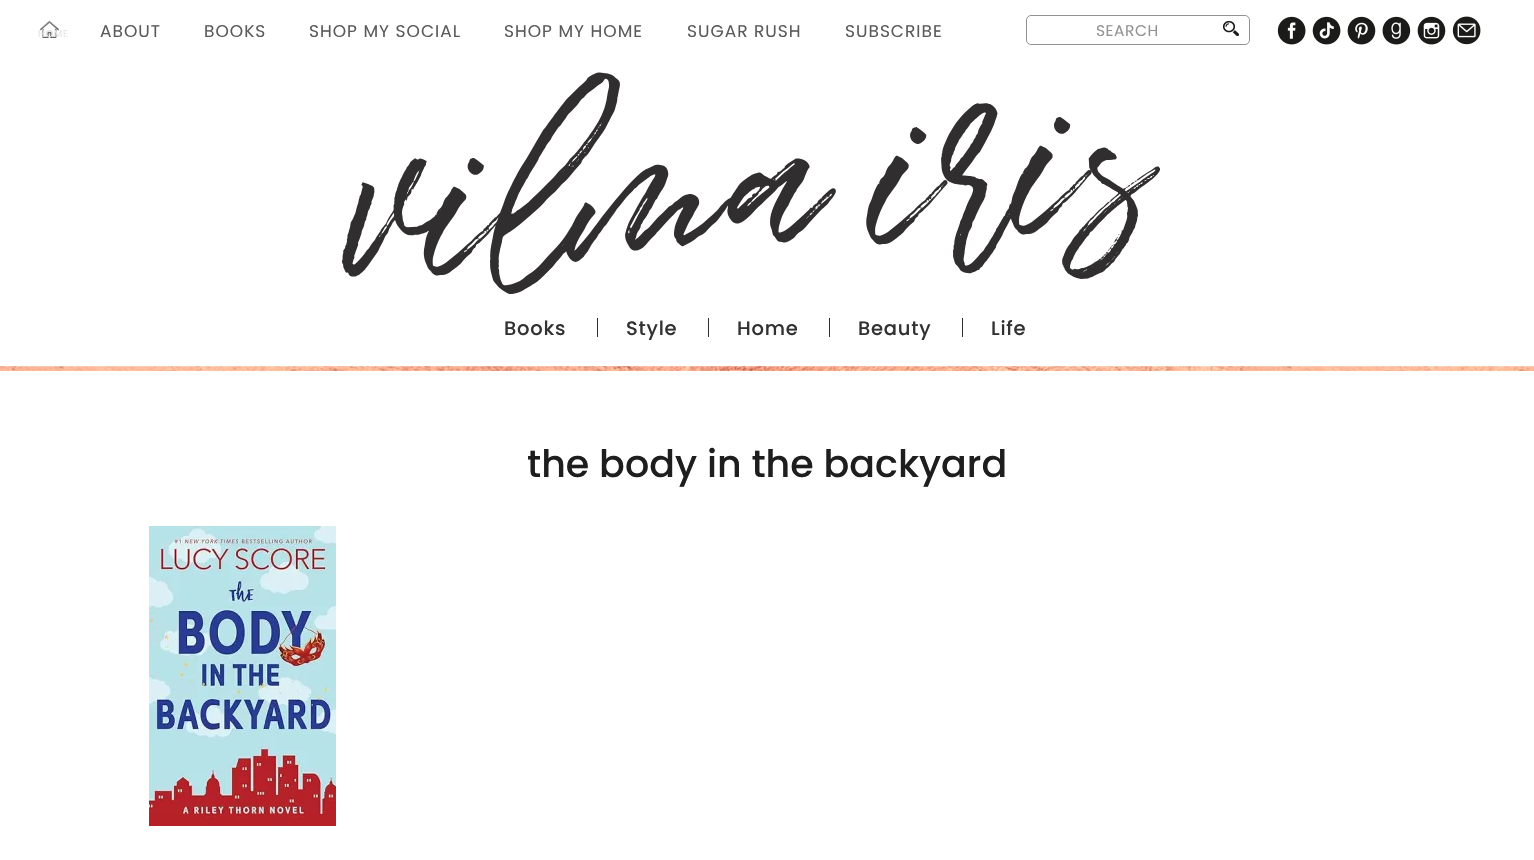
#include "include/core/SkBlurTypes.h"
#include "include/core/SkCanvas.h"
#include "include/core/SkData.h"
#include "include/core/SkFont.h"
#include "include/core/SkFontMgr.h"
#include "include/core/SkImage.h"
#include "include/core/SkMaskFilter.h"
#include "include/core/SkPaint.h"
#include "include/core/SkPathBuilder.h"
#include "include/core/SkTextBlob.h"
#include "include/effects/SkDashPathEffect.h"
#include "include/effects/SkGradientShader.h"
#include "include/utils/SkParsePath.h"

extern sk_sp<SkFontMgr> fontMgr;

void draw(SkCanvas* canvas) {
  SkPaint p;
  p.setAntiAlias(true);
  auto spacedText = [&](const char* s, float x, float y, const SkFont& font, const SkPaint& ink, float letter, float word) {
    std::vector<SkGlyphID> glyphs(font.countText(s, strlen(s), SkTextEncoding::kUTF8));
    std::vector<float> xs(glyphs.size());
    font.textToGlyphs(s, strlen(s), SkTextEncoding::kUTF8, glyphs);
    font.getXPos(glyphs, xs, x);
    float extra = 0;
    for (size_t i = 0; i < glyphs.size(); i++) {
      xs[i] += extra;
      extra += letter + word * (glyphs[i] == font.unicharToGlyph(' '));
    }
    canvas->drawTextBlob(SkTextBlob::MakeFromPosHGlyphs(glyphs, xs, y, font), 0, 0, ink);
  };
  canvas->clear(SK_ColorWHITE);
  canvas->drawImageRect(SkImages::DeferredFromEncodedData(SkData::MakeFromFileName("images/1.png")), SkRect::MakeLTRB(40, 20, 59, 38), SkSamplingOptions());
  canvas->drawImageRect(SkImages::DeferredFromEncodedData(SkData::MakeFromFileName("images/2.png")), SkRect::MakeLTRB(1223, 21, 1239, 36), SkSamplingOptions());
  p.setStyle(SkPaint::kStroke_Style);
  p.setStrokeWidth(1);
  p.setColor(SkColorSetRGB(146, 146, 146));
  canvas->drawRoundRect(SkRect::MakeLTRB(1026.5f, 15.5f, 1249.5f, 44.5f), 4.5f, 4.5f, p);
  canvas->drawImageRect(SkImages::DeferredFromEncodedData(SkData::MakeFromFileName("images/3.png")), SkRect::MakeLTRB(1277, 16, 1306, 45), SkSamplingOptions());
  canvas->drawImageRect(SkImages::DeferredFromEncodedData(SkData::MakeFromFileName("images/4.png")), SkRect::MakeLTRB(1312, 16, 1341, 45), SkSamplingOptions());
  canvas->drawImageRect(SkImages::DeferredFromEncodedData(SkData::MakeFromFileName("images/5.png")), SkRect::MakeLTRB(1347, 16, 1376, 45), SkSamplingOptions());
  canvas->drawImageRect(SkImages::DeferredFromEncodedData(SkData::MakeFromFileName("images/6.png")), SkRect::MakeLTRB(1382, 16, 1411, 45), SkSamplingOptions());
  canvas->drawImageRect(SkImages::DeferredFromEncodedData(SkData::MakeFromFileName("images/7.png")), SkRect::MakeLTRB(1417, 16, 1446, 45), SkSamplingOptions());
  canvas->drawImageRect(SkImages::DeferredFromEncodedData(SkData::MakeFromFileName("images/8.png")), SkRect::MakeLTRB(1452, 16, 1481, 45), SkSamplingOptions());
  canvas->drawImageRect(SkImages::DeferredFromEncodedData(SkData::MakeFromFileName("images/9.png")), SkRect::MakeLTRB(342, 72, 1160, 294), SkSamplingOptions());
  p.setStyle(SkPaint::kFill_Style);
  p.setColor(SkColorSetRGB(48, 48, 48));
  canvas->drawRect(SkRect::MakeLTRB(597, 318, 598, 337), p);
  canvas->drawRect(SkRect::MakeLTRB(708, 318, 709, 337), p);
  canvas->drawRect(SkRect::MakeLTRB(829, 318, 830, 337), p);
  canvas->drawRect(SkRect::MakeLTRB(962, 318, 963, 337), p);
  canvas->drawImageRect(SkImages::DeferredFromEncodedData(SkData::MakeFromFileName("images/10.png")), SkRect::MakeLTRB(0, 366, 1534, 371), SkSamplingOptions());
  canvas->drawImageRect(SkImages::DeferredFromEncodedData(SkData::MakeFromFileName("images/11.png")), SkRect::MakeLTRB(149, 526, 336, 826), SkSamplingOptions());
  SkFont font1(fontMgr->matchFamilyStyle("Poppins", SkFontStyle::Normal()), 17);
  font1.setSubpixel(true);
  p.setColor(SkColorSetRGB(90, 90, 90));
  spacedText("ABOUT", 100, 37, font1, p, 1, 0);
  spacedText("BOOKS", 204, 37, font1, p, 1, 0);
  spacedText("SHOP MY SOCIAL", 309, 37, font1, p, 1, 0);
  spacedText("SHOP MY HOME", 504, 37, font1, p, 1, 0);
  spacedText("SUGAR RUSH", 687, 37, font1, p, 1, 0);
  spacedText("SUBSCRIBE", 845, 37, font1, p, 1, 0);
  SkFont font2(fontMgr->matchFamilyStyle("Poppins", SkFontStyle::Normal()), 10);
  font2.setSubpixel(true);
  p.setColor(SkColorSetRGB(230, 230, 230));
  spacedText("HOME", 38, 37, font2, p, 0.5f, 0);
  SkFont font3(fontMgr->matchFamilyStyle("Poppins", SkFontStyle::Normal()), 15.5f);
  font3.setSubpixel(true);
  p.setColor(SkColorSetRGB(147, 147, 147));
  spacedText("SEARCH", 1096, 36, font3, p, 0.5f, 0);
  SkFont font4(fontMgr->matchFamilyStyle("Poppins", SkFontStyle(500, SkFontStyle::kNormal_Width, SkFontStyle::kUpright_Slant)), 19.5f);
  font4.setSubpixel(true);
  p.setColor(SkColorSetRGB(50, 50, 50));
  spacedText("Books", 504, 335, font4, p, 0.75f, 0);
  spacedText("Style", 626, 335, font4, p, 0.75f, 0);
  spacedText("Home", 737, 335, font4, p, 0.75f, 0);
  spacedText("Beauty", 858, 335, font4, p, 0.75f, 0);
  spacedText("Life", 991, 335, font4, p, 0.75f, 0);
  SkFont font5(fontMgr->matchFamilyStyle("Poppins", SkFontStyle(500, SkFontStyle::kNormal_Width, SkFontStyle::kUpright_Slant)), 38);
  font5.setSubpixel(true);
  p.setColor(SkColorSetRGB(30, 30, 30));
  canvas->drawString("the body in the backyard", 527, 477, font5, p);
}
